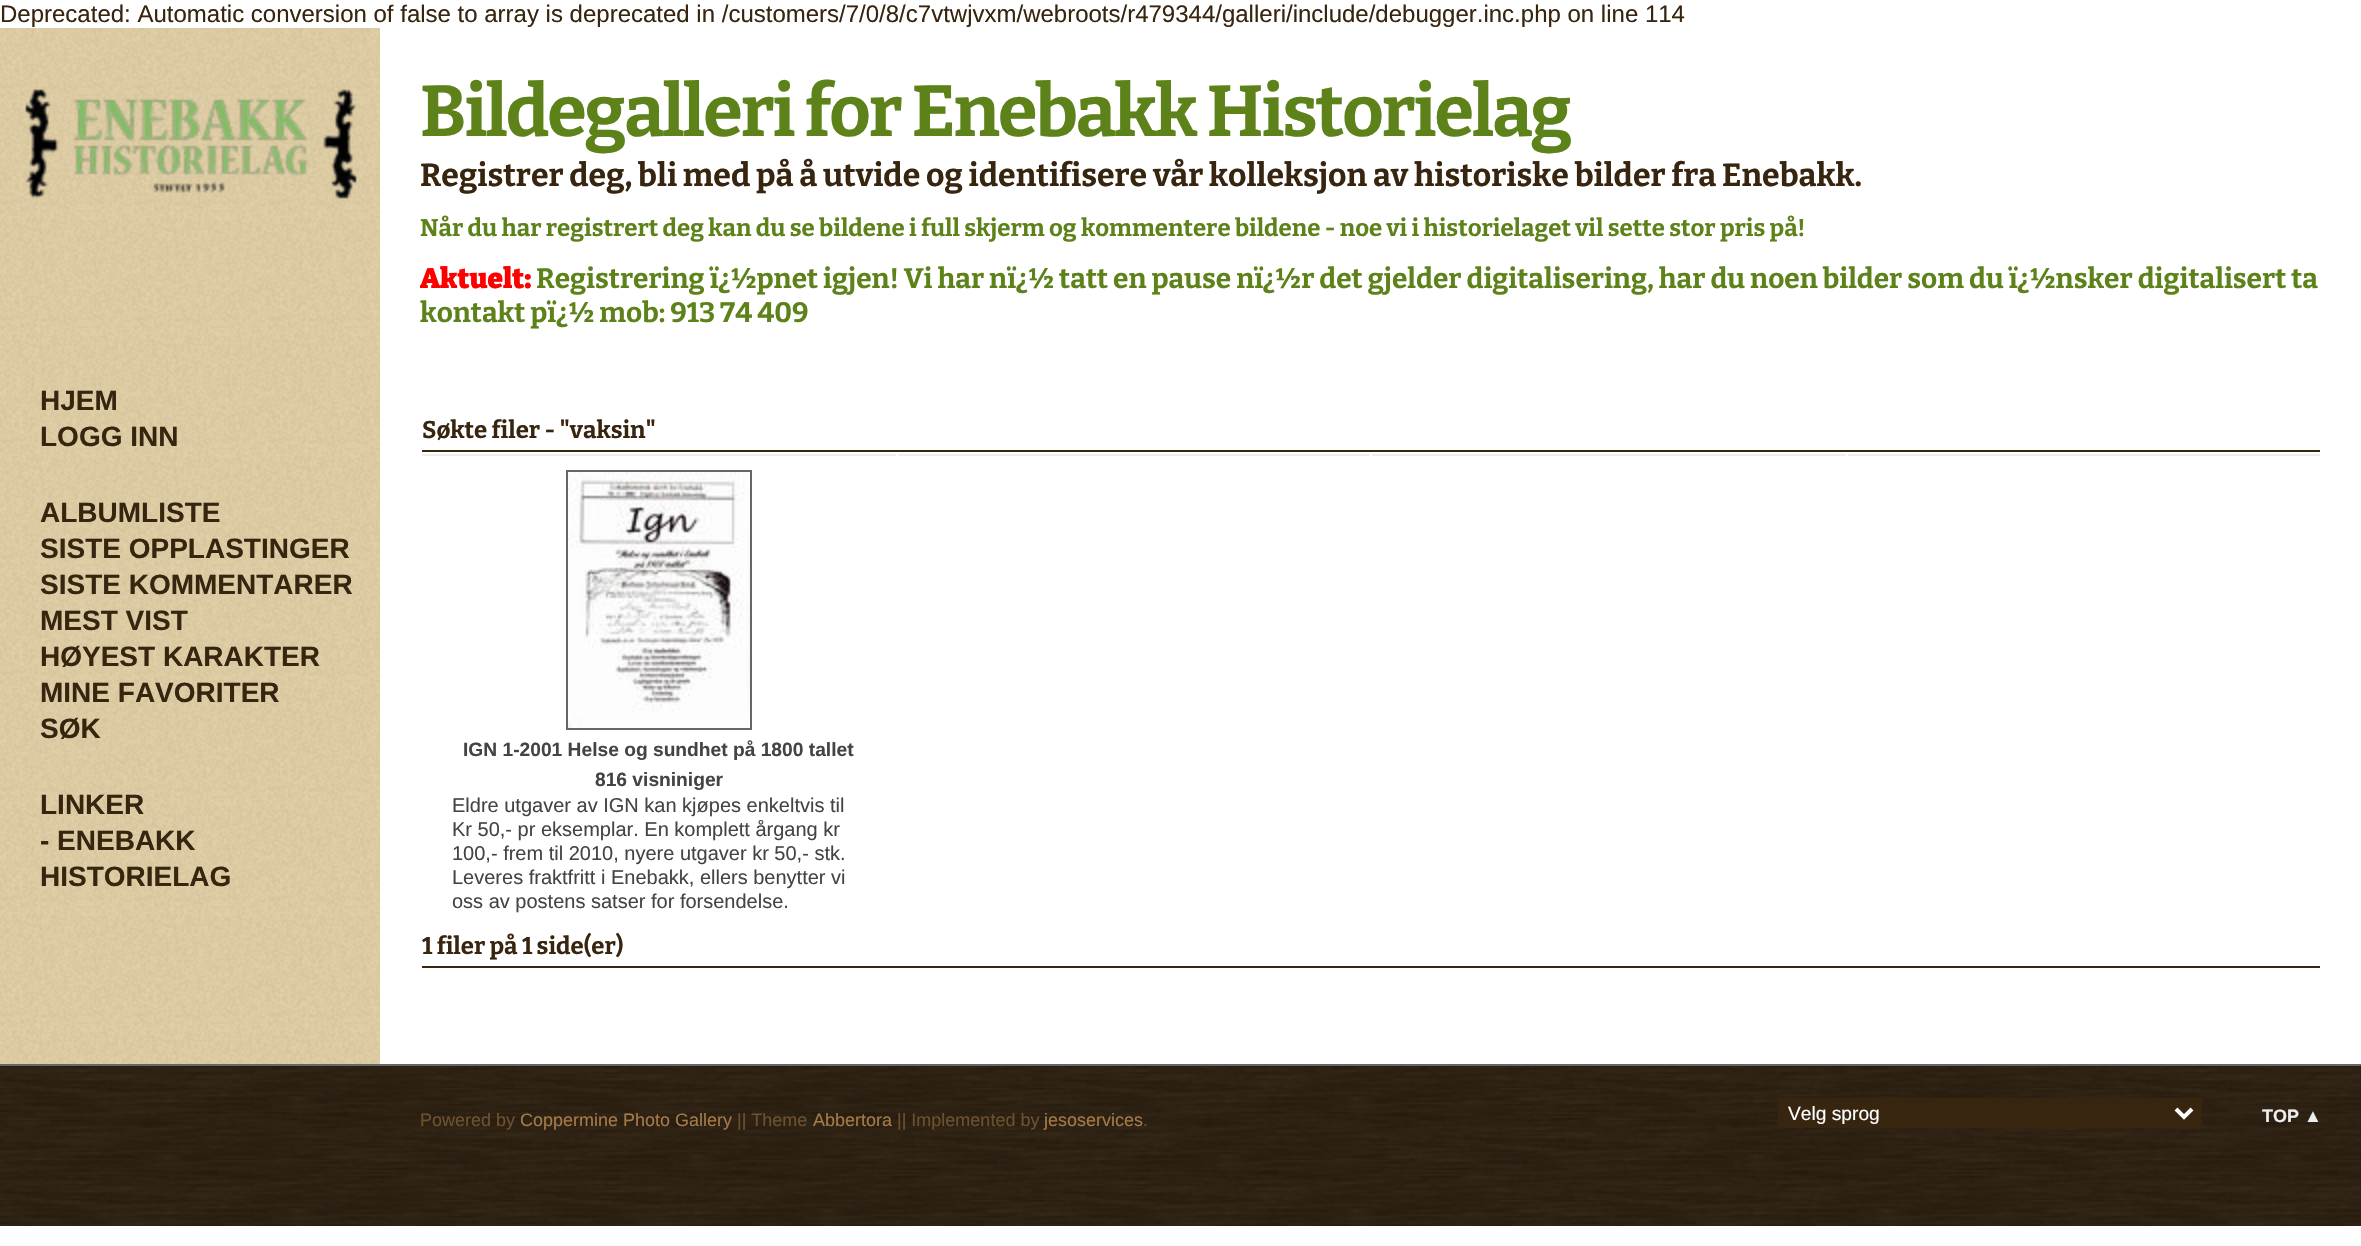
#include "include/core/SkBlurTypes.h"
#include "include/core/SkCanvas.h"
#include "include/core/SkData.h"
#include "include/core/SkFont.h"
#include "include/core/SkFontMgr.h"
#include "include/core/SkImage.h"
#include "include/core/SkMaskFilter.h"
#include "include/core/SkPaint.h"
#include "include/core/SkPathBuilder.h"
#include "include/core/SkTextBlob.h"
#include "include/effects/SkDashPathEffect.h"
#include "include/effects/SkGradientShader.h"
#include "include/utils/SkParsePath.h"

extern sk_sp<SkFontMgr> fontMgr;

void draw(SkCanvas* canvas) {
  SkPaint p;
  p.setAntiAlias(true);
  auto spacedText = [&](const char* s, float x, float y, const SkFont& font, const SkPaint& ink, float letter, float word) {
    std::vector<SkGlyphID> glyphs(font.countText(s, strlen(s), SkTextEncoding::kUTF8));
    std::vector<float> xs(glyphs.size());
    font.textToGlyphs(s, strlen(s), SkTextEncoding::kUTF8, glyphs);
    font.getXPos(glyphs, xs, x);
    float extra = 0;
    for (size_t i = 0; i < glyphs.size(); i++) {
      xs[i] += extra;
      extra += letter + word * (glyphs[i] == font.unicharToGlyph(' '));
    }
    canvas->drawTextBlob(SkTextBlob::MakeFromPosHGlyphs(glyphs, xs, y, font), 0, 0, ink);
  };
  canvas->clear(SK_ColorWHITE);
  canvas->drawImageRect(SkImages::DeferredFromEncodedData(SkData::MakeFromFileName("images/1.png")), SkRect::MakeLTRB(0, 28, 380, 1064), SkSamplingOptions());
  canvas->drawImageRect(SkImages::DeferredFromEncodedData(SkData::MakeFromFileName("images/2.png")), SkRect::MakeLTRB(25, 89, 357, 199), SkSamplingOptions());
  canvas->drawImageRect(SkImages::DeferredFromEncodedData(SkData::MakeFromFileName("images/3.png")), SkRect::MakeLTRB(0, 382, 360, 894), SkSamplingOptions());
  p.setColor(SkColorSetRGB(55, 37, 15));
  canvas->drawRect(SkRect::MakeLTRB(422, 450, 2320, 452), p);
  p.setColor(SkColorSetRGB(238, 238, 238));
  canvas->drawRect(SkRect::MakeLTRB(898, 454, 1370, 456), p);
  canvas->drawRect(SkRect::MakeLTRB(1372, 454, 1846, 456), p);
  canvas->drawRect(SkRect::MakeLTRB(1848, 454, 2320, 456), p);
  canvas->drawRect(SkRect::MakeLTRB(422, 454, 896, 456), p);
  p.setStyle(SkPaint::kStroke_Style);
  p.setStrokeWidth(2);
  p.setColor(SkColorSetRGB(102, 102, 102));
  canvas->drawRect(SkRect::MakeLTRB(567, 471, 751, 729), p);
  canvas->drawImageRect(SkImages::DeferredFromEncodedData(SkData::MakeFromFileName("images/4.png")), SkRect::MakeLTRB(568, 472, 750, 728), SkSamplingOptions());
  p.setStyle(SkPaint::kFill_Style);
  p.setColor(SkColorSetRGB(55, 37, 15));
  canvas->drawRect(SkRect::MakeLTRB(422, 966, 2320, 968), p);
  canvas->drawImageRect(SkImages::DeferredFromEncodedData(SkData::MakeFromFileName("images/5.png")), SkRect::MakeLTRB(0, 1066, 2361, 1226), SkSamplingOptions());
  p.setColor(SkColorSetRGB(102, 102, 102));
  canvas->drawRect(SkRect::MakeLTRB(0, 1064, 2361, 1066), p);
  p.setColor(SkColorSetRGB(55, 37, 15));
  canvas->drawRect(SkRect::MakeLTRB(1778, 1098, 2202, 1128), p);
  p.setStyle(SkPaint::kStroke_Style);
  p.setStrokeWidth(4);
  p.setColor(SK_ColorWHITE);
  canvas->drawPath(SkPathBuilder().moveTo(2176, 1109).lineTo(2184, 1117).lineTo(2192, 1109).detach(), p);
  SkFont font1(fontMgr->matchFamilyStyle("Liberation Sans", SkFontStyle::Normal()), 24);
  font1.setSubpixel(true);
  p.setStyle(SkPaint::kFill_Style);
  p.setColor(SkColorSetRGB(55, 37, 15));
  canvas->drawString("Deprecated: Automatic conversion of false to array is deprecated in /customers/7/0/8/c7vtwjvxm/webroots/r479344/galleri/include/debugger.inc.php on line 114", 0, 22, font1, p);
  SkFont font2(fontMgr->matchFamilyStyle("Liberation Sans", SkFontStyle::Bold()), 28);
  font2.setSubpixel(true);
  canvas->drawString("HJEM", 40, 410, font2, p);
  canvas->drawString("LOGG INN", 40, 446, font2, p);
  canvas->drawString("ALBUMLISTE", 40, 522, font2, p);
  canvas->drawString("SISTE OPPLASTINGER", 40, 558, font2, p);
  canvas->drawString("SISTE KOMMENTARER", 40, 594, font2, p);
  canvas->drawString("MEST VIST", 40, 630, font2, p);
  canvas->drawString("HØYEST KARAKTER", 40, 666, font2, p);
  canvas->drawString("MINE FAVORITER", 40, 702, font2, p);
  canvas->drawString("SØK", 40, 738, font2, p);
  canvas->drawString("LINKER", 40, 814, font2, p);
  canvas->drawString("- ENEBAKK", 40, 850, font2, p);
  canvas->drawString("HISTORIELAG", 40, 886, font2, p);
  SkFont font3(fontMgr->matchFamilyStyle("Bitter", SkFontStyle::Bold()), 72);
  font3.setSubpixel(true);
  p.setColor(SkColorSetRGB(94, 130, 26));
  spacedText("Bildegalleri for Enebakk Historielag", 420, 136, font3, p, -2, 0);
  SkFont font4(fontMgr->matchFamilyStyle("Bitter", SkFontStyle::Bold()), 32);
  font4.setSubpixel(true);
  p.setColor(SkColorSetRGB(55, 37, 15));
  canvas->drawString("Registrer deg, bli med på å utvide og identifisere vår kolleksjon av historiske bilder fra Enebakk.", 420, 186, font4, p);
  SkFont font5(fontMgr->matchFamilyStyle("Bitter", SkFontStyle::Bold()), 24);
  font5.setSubpixel(true);
  p.setColor(SkColorSetRGB(94, 130, 26));
  canvas->drawString("Når du har registrert deg kan du se bildene i full skjerm og kommentere bildene - noe vi i historielaget vil sette stor pris på!", 420, 236, font5, p);
  SkFont font6(fontMgr->matchFamilyStyle("Bitter", SkFontStyle(900, SkFontStyle::kNormal_Width, SkFontStyle::kUpright_Slant)), 28);
  font6.setSubpixel(true);
  p.setColor(SkColorSetRGB(255, 0, 0));
  canvas->drawString("Aktuelt:", 420, 288, font6, p);
  SkFont font7(fontMgr->matchFamilyStyle("Bitter", SkFontStyle::Bold()), 28);
  font7.setSubpixel(true);
  p.setColor(SkColorSetRGB(94, 130, 26));
  canvas->drawString("Registrering ï¿½pnet igjen! Vi har nï¿½ tatt en pause nï¿½r det gjelder digitalisering, har du noen bilder som du ï¿½nsker digitalisert ta", 536, 288, font7, p);
  canvas->drawString("kontakt pï¿½ mob: 913 74 409", 420, 322, font7, p);
  p.setColor(SkColorSetRGB(55, 37, 15));
  canvas->drawString("Søkte filer - \"vaksin\"", 422, 438, font5, p);
  SkFont font8(fontMgr->matchFamilyStyle("Liberation Sans", SkFontStyle::Bold()), 19.2f);
  font8.setSubpixel(true);
  p.setColor(SkColorSetRGB(68, 68, 68));
  canvas->drawString("IGN 1-2001 Helse og sundhet på 1800 tallet", 463, 756, font8, p);
  canvas->drawString("816 visniniger", 595, 786, font8, p);
  SkFont font9(fontMgr->matchFamilyStyle("Liberation Sans", SkFontStyle::Normal()), 20);
  font9.setSubpixel(true);
  canvas->drawString("Eldre utgaver av IGN kan kjøpes enkeltvis til", 452, 812, font9, p);
  canvas->drawString("Kr 50,- pr eksemplar. En komplett årgang kr", 452, 836, font9, p);
  canvas->drawString("100,- frem til 2010, nyere utgaver kr 50,- stk.", 452, 860, font9, p);
  canvas->drawString("Leveres fraktfritt i Enebakk, ellers benytter vi", 452, 884, font9, p);
  canvas->drawString("oss av postens satser for forsendelse.", 452, 908, font9, p);
  p.setColor(SkColorSetRGB(55, 37, 15));
  canvas->drawString("1 filer på 1 side(er)", 422, 954, font5, p);
  SkFont font10(fontMgr->matchFamilyStyle("Liberation Sans", SkFontStyle::Normal()), 18);
  font10.setSubpixel(true);
  p.setColor(SkColorSetRGB(110, 82, 47));
  canvas->drawString("Powered by", 420, 1126, font10, p);
  p.setColor(SkColorSetRGB(165, 123, 71));
  canvas->drawString("Coppermine Photo Gallery", 520, 1126, font10, p);
  p.setColor(SkColorSetRGB(110, 82, 47));
  canvas->drawString("|| Theme", 737, 1126, font10, p);
  p.setColor(SkColorSetRGB(165, 123, 71));
  canvas->drawString("Abbertora", 813, 1126, font10, p);
  p.setColor(SkColorSetRGB(110, 82, 47));
  canvas->drawString("|| Implemented by", 897, 1126, font10, p);
  p.setColor(SkColorSetRGB(165, 123, 71));
  canvas->drawString("jesoservices", 1044, 1126, font10, p);
  p.setColor(SkColorSetRGB(110, 82, 47));
  canvas->drawString(".", 1143, 1126, font10, p);
  SkFont font11(fontMgr->matchFamilyStyle("Liberation Sans", SkFontStyle::Normal()), 19.2f);
  font11.setSubpixel(true);
  p.setColor(SK_ColorWHITE);
  canvas->drawString("Velg sprog", 1788, 1120, font11, p);
  SkFont font12(fontMgr->matchFamilyStyle("Liberation Sans", SkFontStyle::Bold()), 18);
  font12.setSubpixel(true);
  p.setColor(SkColorSetRGB(238, 238, 238));
  canvas->drawString("TOP ▲", 2262, 1122, font12, p);
}
